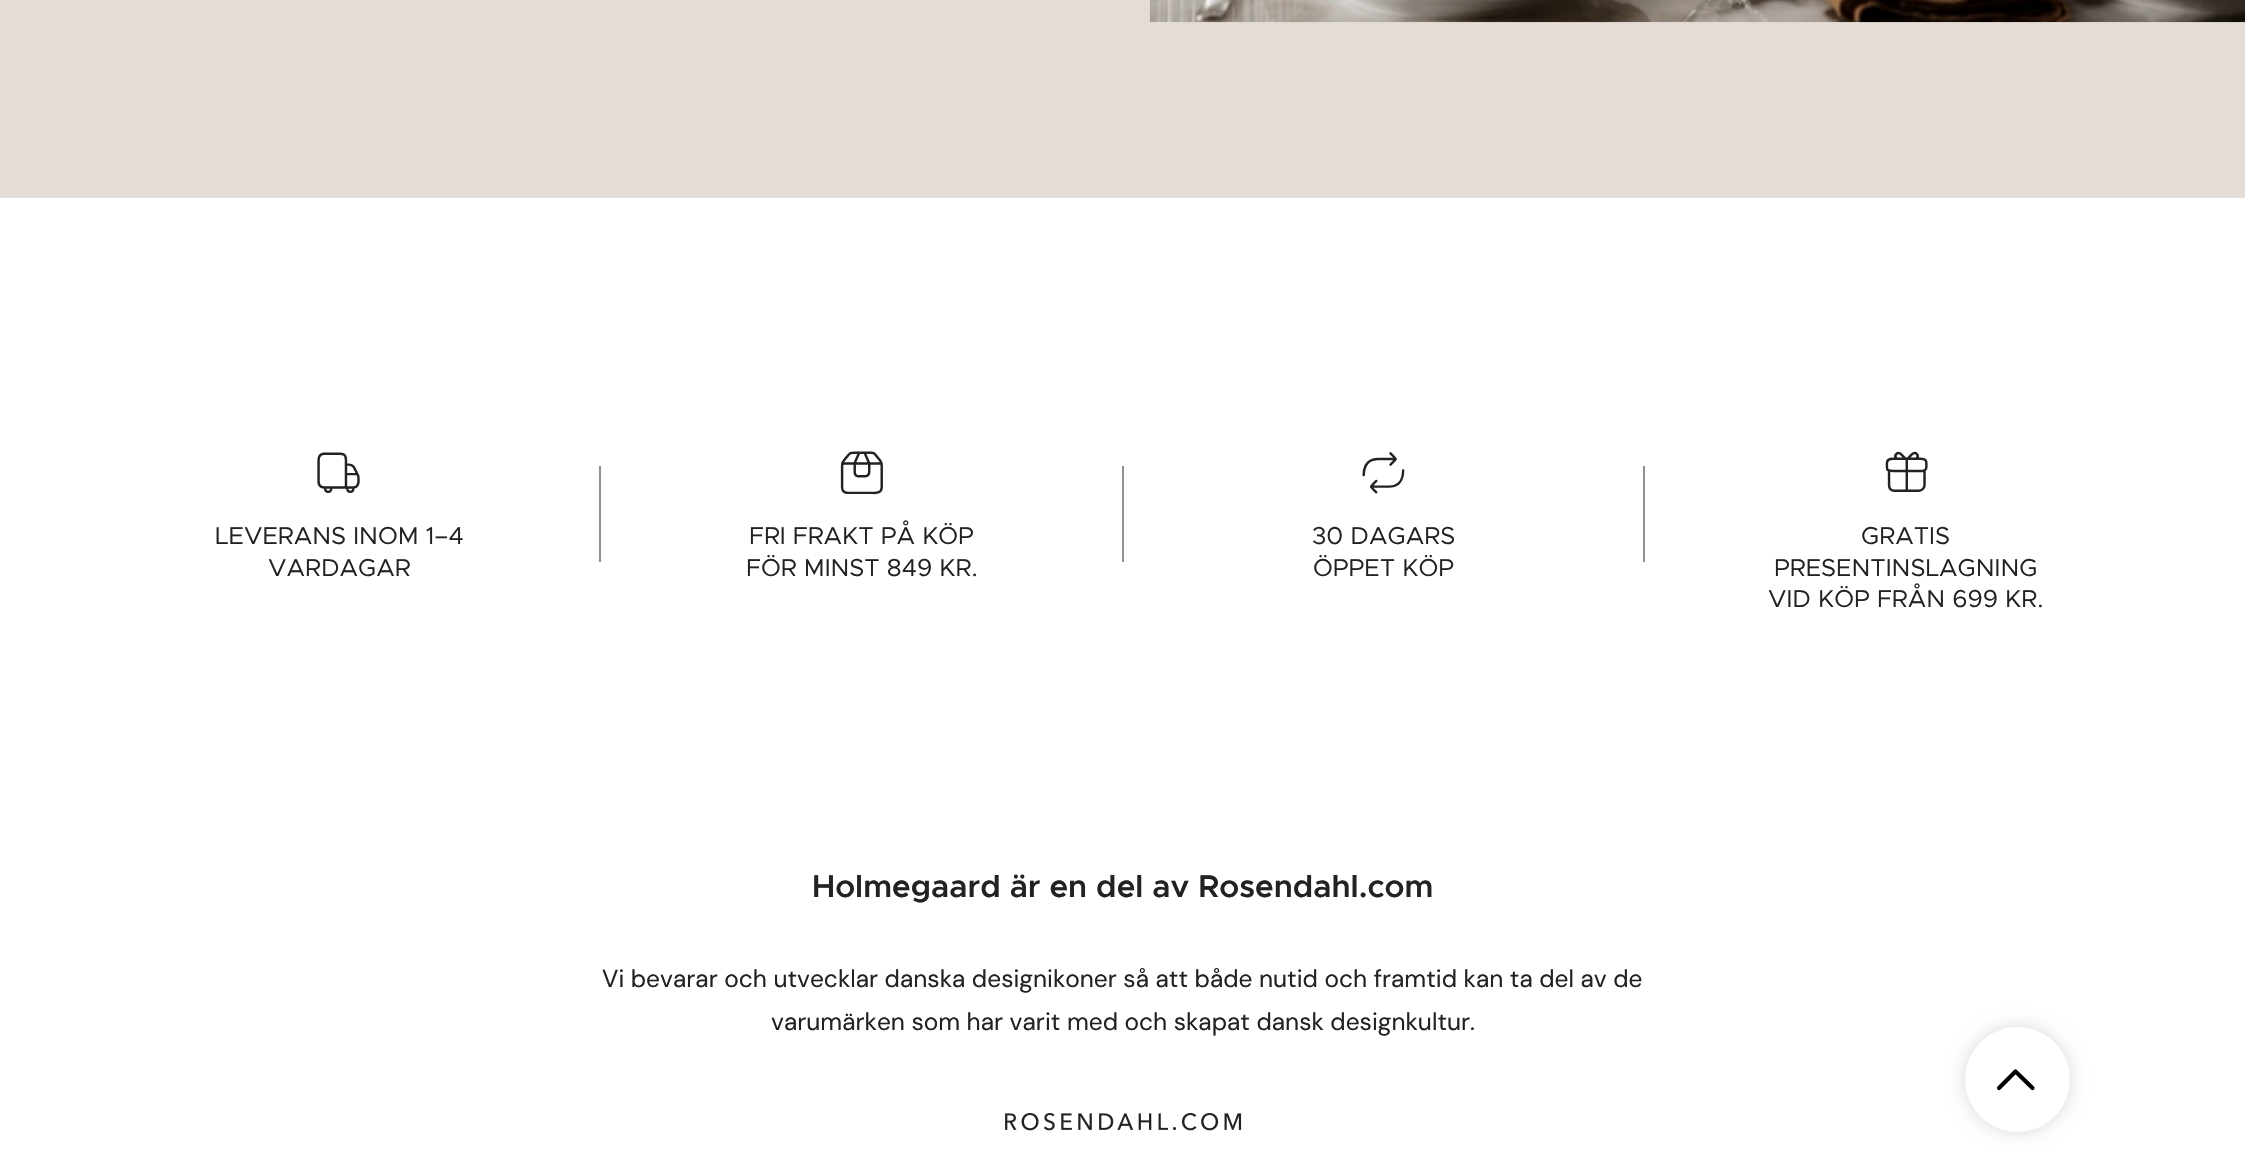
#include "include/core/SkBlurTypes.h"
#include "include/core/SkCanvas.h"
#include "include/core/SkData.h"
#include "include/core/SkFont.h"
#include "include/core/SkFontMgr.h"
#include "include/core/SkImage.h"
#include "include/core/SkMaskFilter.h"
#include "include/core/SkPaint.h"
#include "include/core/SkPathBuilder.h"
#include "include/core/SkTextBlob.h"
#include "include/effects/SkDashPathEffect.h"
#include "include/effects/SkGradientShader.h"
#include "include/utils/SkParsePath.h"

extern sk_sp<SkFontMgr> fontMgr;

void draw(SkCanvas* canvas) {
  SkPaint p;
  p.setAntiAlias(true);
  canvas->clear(SK_ColorWHITE);
  p.setColor(SkColorSetRGB(228, 221, 215));
  canvas->drawRect(SkRect::MakeLTRB(0, 0, 2245, 198), p);
  canvas->drawImageRect(SkImages::DeferredFromEncodedData(SkData::MakeFromFileName("images/1.png")), SkRect::MakeLTRB(1149, 0, 2245, 23), SkSamplingOptions());
  canvas->drawImageRect(SkImages::DeferredFromEncodedData(SkData::MakeFromFileName("images/2.png")), SkRect::MakeLTRB(317, 452, 360, 493), SkSamplingOptions());
  p.setColor(SkColorSetRGB(145, 145, 146));
  canvas->drawRect(SkRect::MakeLTRB(599, 466, 601, 562), p);
  canvas->drawImageRect(SkImages::DeferredFromEncodedData(SkData::MakeFromFileName("images/3.png")), SkRect::MakeLTRB(840, 451, 883, 495), SkSamplingOptions());
  canvas->drawRect(SkRect::MakeLTRB(1122, 466, 1124, 562), p);
  canvas->drawImageRect(SkImages::DeferredFromEncodedData(SkData::MakeFromFileName("images/4.png")), SkRect::MakeLTRB(1362, 452, 1405, 494), SkSamplingOptions());
  canvas->drawRect(SkRect::MakeLTRB(1643, 466, 1645, 562), p);
  canvas->drawImageRect(SkImages::DeferredFromEncodedData(SkData::MakeFromFileName("images/5.png")), SkRect::MakeLTRB(1885, 451, 1928, 492), SkSamplingOptions());
  canvas->drawImageRect(SkImages::DeferredFromEncodedData(SkData::MakeFromFileName("images/6.png")), SkRect::MakeLTRB(1005, 1113, 1242, 1131), SkSamplingOptions());
  p.setColor(SkColorSetARGB(38, 0, 0, 0));
  p.setMaskFilter(SkMaskFilter::MakeBlur(kNormal_SkBlurStyle, 9));
  canvas->drawRoundRect(SkRect::MakeLTRB(1965, 1027, 2070, 1132), 52.5f, 52.5f, p);
  p.setMaskFilter(nullptr);
  p.setColor(SK_ColorWHITE);
  canvas->drawCircle(2017.5f, 1079.5f, 52.5f, p);
  p.setStyle(SkPaint::kStroke_Style);
  p.setStrokeWidth(4.2f);
  p.setStrokeCap(SkPaint::kRound_Cap);
  p.setStrokeJoin(SkPaint::kRound_Join);
  p.setColor(SkColorSetRGB(2, 2, 3));
  canvas->drawPath(SkPathBuilder().moveTo(2032.5f, 1088).lineTo(2015.5f, 1071.5f).lineTo(1999, 1088).detach(), p);
  SkFont font1(fontMgr->matchFamilyStyle("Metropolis", SkFontStyle::Normal()), 24.5f);
  font1.setSubpixel(true);
  p.setStyle(SkPaint::kFill_Style);
  p.setColor(SkColorSetRGB(34, 34, 34));
  canvas->drawString("LEVERANS INOM 1–4", 215, 544, font1, p);
  canvas->drawString("VARDAGAR", 268, 576, font1, p);
  canvas->drawString("FRI FRAKT PÅ KÖP", 749, 544, font1, p);
  canvas->drawString("FÖR MINST 849 KR.", 746, 576, font1, p);
  canvas->drawString("30 DAGARS", 1312, 544, font1, p);
  canvas->drawString("ÖPPET KÖP", 1313, 576, font1, p);
  canvas->drawString("GRATIS", 1861, 544, font1, p);
  canvas->drawString("PRESENTINSLAGNING", 1774, 576, font1, p);
  canvas->drawString("VID KÖP FRÅN 699 KR.", 1768, 607, font1, p);
  SkFont font2(fontMgr->matchFamilyStyle("Metropolis", SkFontStyle(600, SkFontStyle::kNormal_Width, SkFontStyle::kUpright_Slant)), 31.5f);
  font2.setSubpixel(true);
  canvas->drawString("Holmegaard är en del av Rosendahl.com", 812, 897, font2, p);
  SkFont font3(fontMgr->matchFamilyStyle("DM Sans", SkFontStyle::Normal()), 24.5f);
  font3.setSubpixel(true);
  canvas->drawString("Vi bevarar och utvecklar danska designikoner så att både nutid och framtid kan ta del av de", 602, 987, font3, p);
  canvas->drawString("varumärken som har varit med och skapat dansk designkultur.", 771, 1030, font3, p);
}
